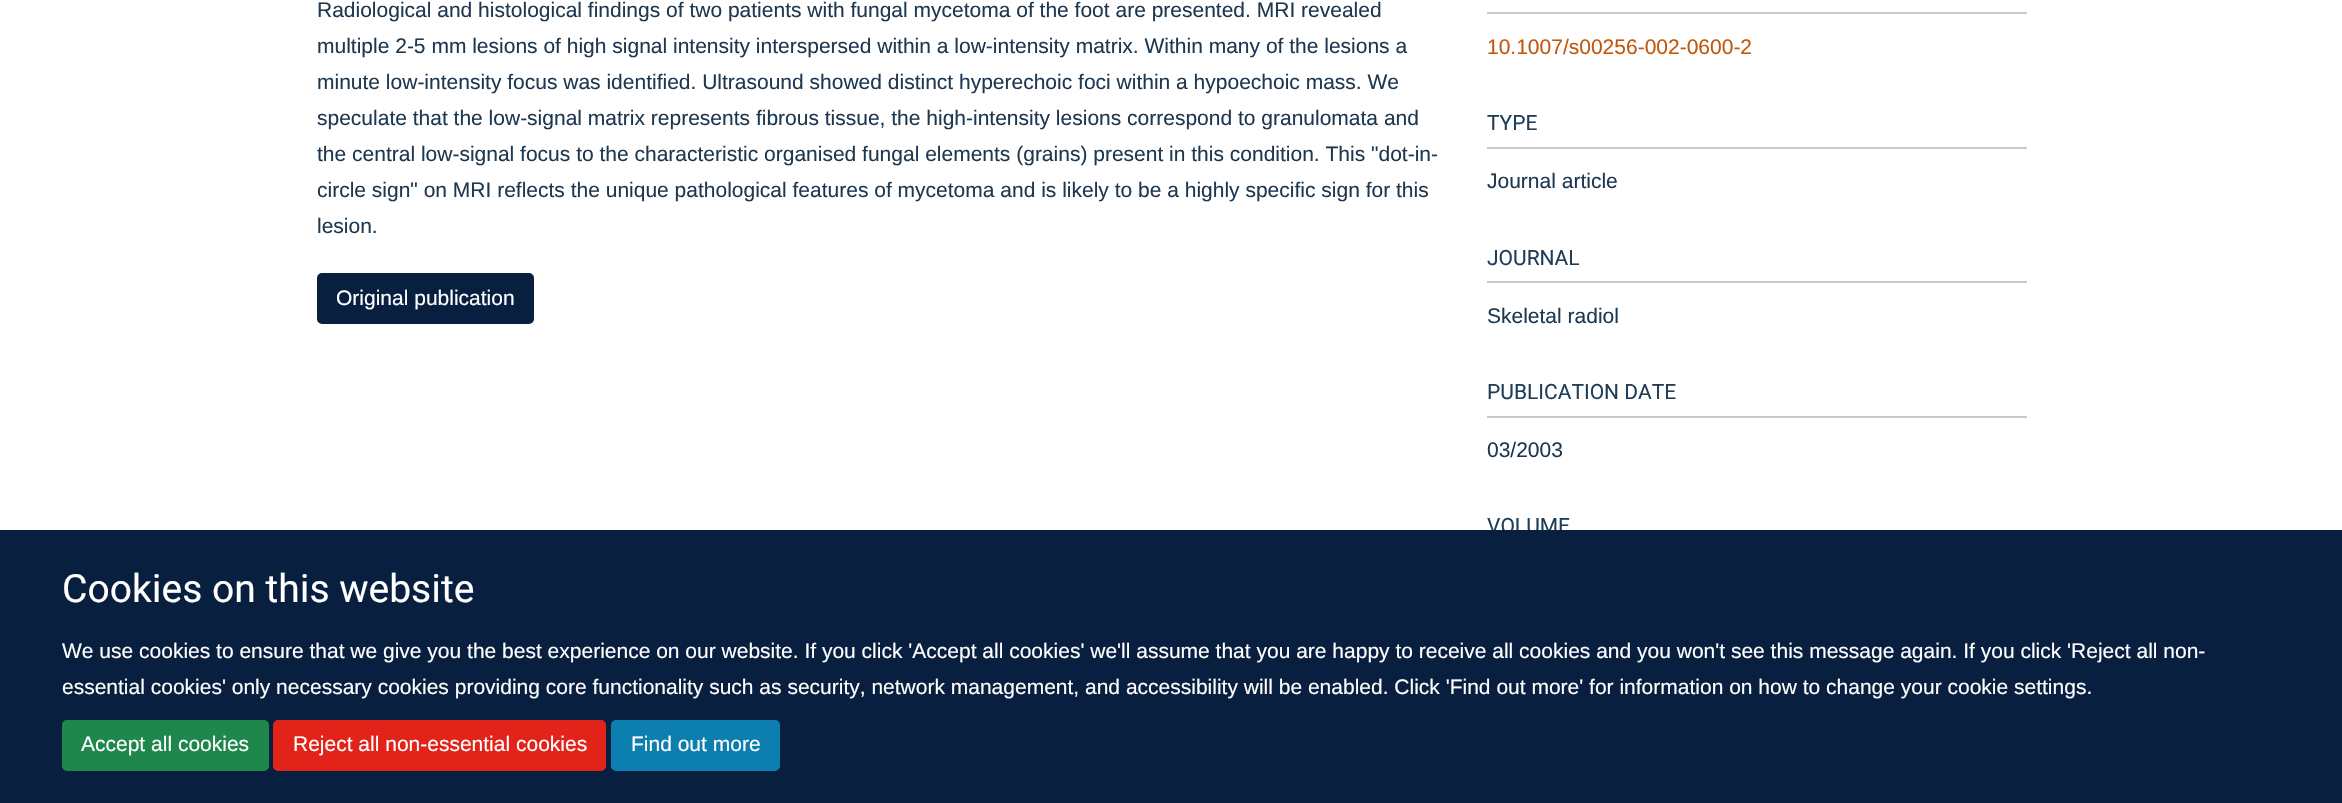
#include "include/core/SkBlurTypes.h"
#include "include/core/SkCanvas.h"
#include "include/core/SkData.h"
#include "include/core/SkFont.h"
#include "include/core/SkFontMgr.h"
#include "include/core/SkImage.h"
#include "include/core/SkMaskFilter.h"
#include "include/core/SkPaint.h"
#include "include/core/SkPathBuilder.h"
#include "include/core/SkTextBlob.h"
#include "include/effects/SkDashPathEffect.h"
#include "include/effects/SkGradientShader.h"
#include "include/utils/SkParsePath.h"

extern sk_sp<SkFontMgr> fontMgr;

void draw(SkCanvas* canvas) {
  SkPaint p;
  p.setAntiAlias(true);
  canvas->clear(SK_ColorWHITE);
  p.setColor(SkColorSetRGB(9, 31, 64));
  canvas->drawRoundRect(SkRect::MakeLTRB(318, 274, 533, 323), 4, 4, p);
  p.setStyle(SkPaint::kStroke_Style);
  p.setStrokeWidth(2);
  canvas->drawRoundRect(SkRect::MakeLTRB(318, 274, 533, 323), 4, 4, p);
  p.setStyle(SkPaint::kFill_Style);
  p.setColor(SkColorSetRGB(198, 202, 207));
  canvas->drawRect(SkRect::MakeLTRB(1487, 12, 2027, 14), p);
  canvas->drawRect(SkRect::MakeLTRB(1487, 147, 2027, 149), p);
  canvas->drawRect(SkRect::MakeLTRB(1487, 281, 2027, 283), p);
  canvas->drawRect(SkRect::MakeLTRB(1487, 416, 2027, 418), p);
  SkFont font1(fontMgr->matchFamilyStyle("Liberation Sans", SkFontStyle::Normal()), 21);
  font1.setSubpixel(true);
  p.setColor(SkColorSetRGB(29, 56, 80));
  canvas->drawString("Radiological and histological findings of two patients with fungal mycetoma of the foot are presented. MRI revealed", 317, 17, font1, p);
  canvas->drawString("multiple 2-5 mm lesions of high signal intensity interspersed within a low-intensity matrix. Within many of the lesions a", 317, 53, font1, p);
  canvas->drawString("minute low-intensity focus was identified. Ultrasound showed distinct hyperechoic foci within a hypoechoic mass. We", 317, 89, font1, p);
  canvas->drawString("speculate that the low-signal matrix represents fibrous tissue, the high-intensity lesions correspond to granulomata and", 317, 125, font1, p);
  canvas->drawString("the central low-signal focus to the characteristic organised fungal elements (grains) present in this condition. This \"dot-in-", 317, 161, font1, p);
  canvas->drawString("circle sign\" on MRI reflects the unique pathological features of mycetoma and is likely to be a highly specific sign for this", 317, 197, font1, p);
  canvas->drawString("lesion.", 317, 233, font1, p);
  p.setColor(SK_ColorWHITE);
  canvas->drawString("Original publication", 336, 305, font1, p);
  p.setColor(SkColorSetRGB(193, 87, 14));
  canvas->drawString("10.1007/s00256-002-0600-2", 1487, 54, font1, p);
  SkFont font2(fontMgr->matchFamilyStyle("Heebo", SkFontStyle::Normal()), 21);
  font2.setSubpixel(true);
  p.setColor(SkColorSetRGB(32, 62, 88));
  canvas->drawString("TYPE", 1487, 130, font2, p);
  p.setColor(SkColorSetRGB(29, 56, 80));
  canvas->drawString("Journal article", 1487, 188, font1, p);
  p.setColor(SkColorSetRGB(32, 62, 88));
  canvas->drawString("JOURNAL", 1487, 265, font2, p);
  p.setColor(SkColorSetRGB(29, 56, 80));
  canvas->drawString("Skeletal radiol", 1487, 323, font1, p);
  p.setColor(SkColorSetRGB(32, 62, 88));
  canvas->drawString("PUBLICATION DATE", 1487, 399, font2, p);
  p.setColor(SkColorSetRGB(29, 56, 80));
  canvas->drawString("03/2003", 1487, 457, font1, p);
  p.setColor(SkColorSetRGB(32, 62, 88));
  canvas->drawString("VOLUME", 1487, 533, font2, p);
  p.setColor(SkColorSetRGB(9, 31, 64));
  canvas->drawRect(SkRect::MakeLTRB(0, 530, 2342, 803), p);
  SkFont font3(fontMgr->matchFamilyStyle("Heebo", SkFontStyle::Normal()), 39);
  font3.setSubpixel(true);
  p.setColor(SK_ColorWHITE);
  canvas->drawString("Cookies on this website", 62, 602, font3, p);
  canvas->drawString("We use cookies to ensure that we give you the best experience on our website. If you click 'Accept all cookies' we'll assume that you are happy to receive all cookies and you won't see this message again. If you click 'Reject all non-", 62, 658, font1, p);
  canvas->drawString("essential cookies' only necessary cookies providing core functionality such as security, network management, and accessibility will be enabled. Click 'Find out more' for information on how to change your cookie settings.", 62, 694, font1, p);
  p.setColor(SkColorSetRGB(30, 135, 75));
  canvas->drawRoundRect(SkRect::MakeLTRB(63, 721, 268, 770), 4, 4, p);
  p.setStyle(SkPaint::kStroke_Style);
  canvas->drawRoundRect(SkRect::MakeLTRB(63, 721, 268, 770), 4, 4, p);
  p.setStyle(SkPaint::kFill_Style);
  p.setColor(SK_ColorWHITE);
  canvas->drawString("Accept all cookies", 81, 751, font1, p);
  p.setColor(SkColorSetRGB(226, 35, 26));
  canvas->drawRoundRect(SkRect::MakeLTRB(274, 721, 605, 770), 4, 4, p);
  p.setStyle(SkPaint::kStroke_Style);
  canvas->drawRoundRect(SkRect::MakeLTRB(274, 721, 605, 770), 4, 4, p);
  p.setStyle(SkPaint::kFill_Style);
  p.setColor(SK_ColorWHITE);
  canvas->drawString("Reject all non-essential cookies", 293, 751, font1, p);
  p.setColor(SkColorSetRGB(13, 126, 176));
  canvas->drawRoundRect(SkRect::MakeLTRB(612, 721, 779, 770), 4, 4, p);
  p.setStyle(SkPaint::kStroke_Style);
  canvas->drawRoundRect(SkRect::MakeLTRB(612, 721, 779, 770), 4, 4, p);
  p.setStyle(SkPaint::kFill_Style);
  p.setColor(SK_ColorWHITE);
  canvas->drawString("Find out more", 631, 751, font1, p);
}
